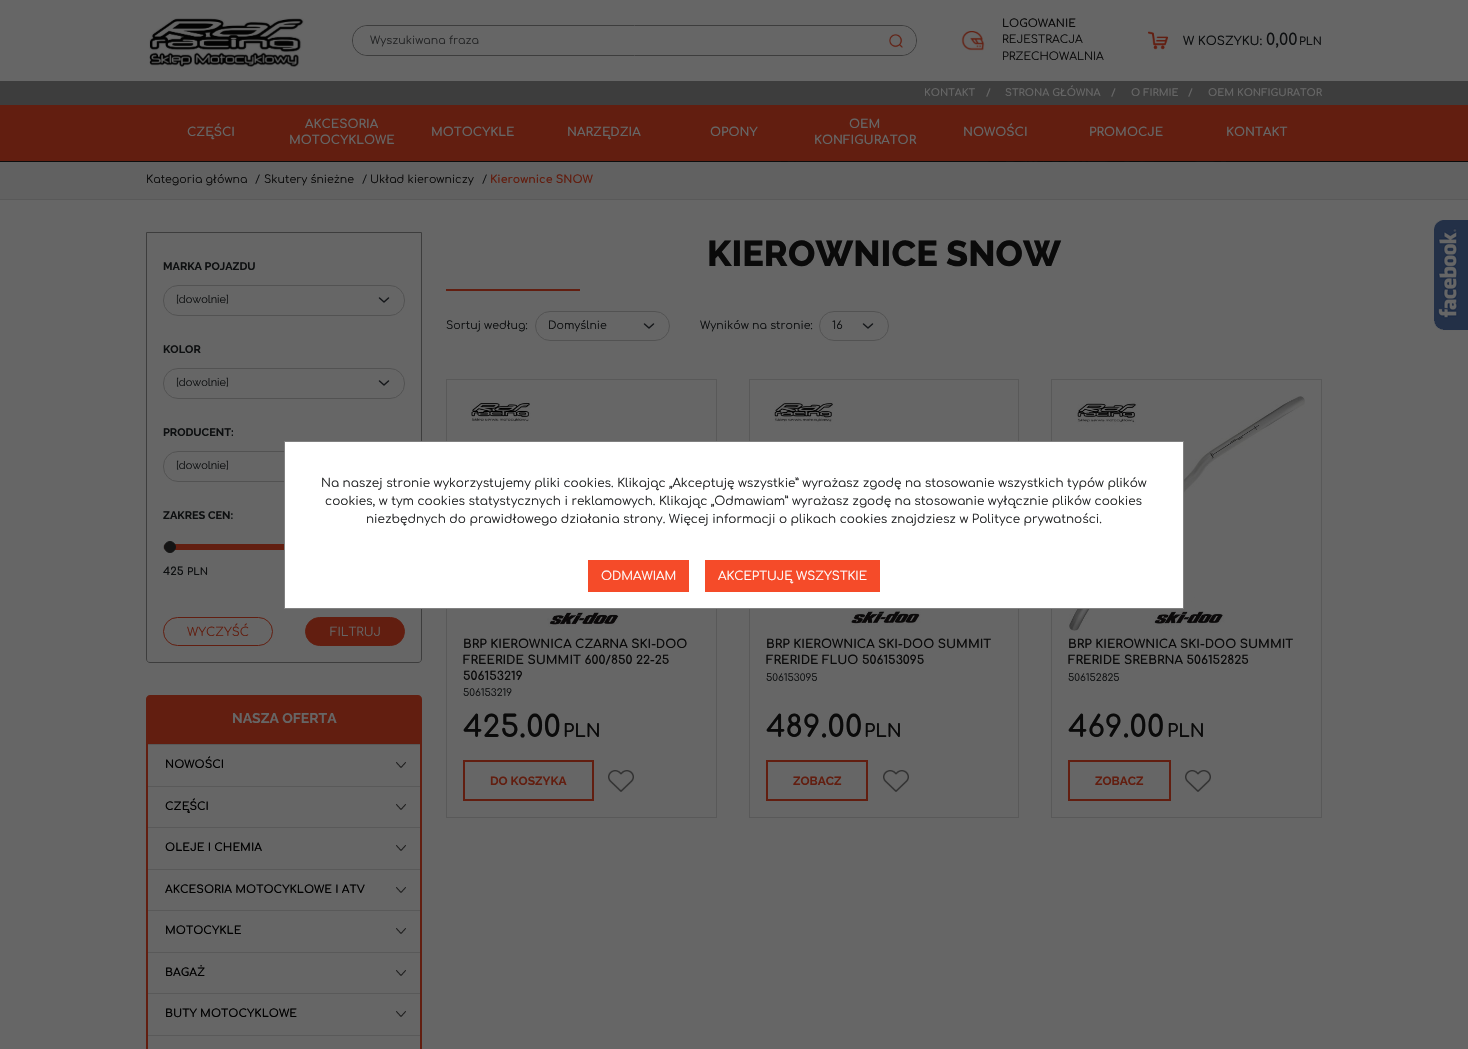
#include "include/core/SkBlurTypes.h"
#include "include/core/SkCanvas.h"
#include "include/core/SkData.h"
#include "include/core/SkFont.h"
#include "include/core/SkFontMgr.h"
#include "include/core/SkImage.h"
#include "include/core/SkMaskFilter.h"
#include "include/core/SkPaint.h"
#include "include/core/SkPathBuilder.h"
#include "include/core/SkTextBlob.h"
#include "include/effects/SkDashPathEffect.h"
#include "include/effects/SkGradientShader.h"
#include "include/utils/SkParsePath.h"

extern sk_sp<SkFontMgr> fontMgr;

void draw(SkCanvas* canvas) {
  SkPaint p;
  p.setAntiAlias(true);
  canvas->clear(SK_ColorWHITE);
  canvas->drawImageRect(SkImages::DeferredFromEncodedData(SkData::MakeFromFileName("images/1.png")), SkRect::MakeLTRB(0, 161, 1468, 162), SkSamplingOptions());
  p.setColor(SkColorSetRGB(102, 102, 102));
  canvas->drawRect(SkRect::MakeLTRB(0, 0, 1468, 81), p);
  canvas->drawImageRect(SkImages::DeferredFromEncodedData(SkData::MakeFromFileName("images/2.png")), SkRect::MakeLTRB(149, 18, 304, 67), SkSamplingOptions());
  p.setStyle(SkPaint::kStroke_Style);
  p.setStrokeWidth(1);
  p.setColor(SkColorSetRGB(61, 61, 61));
  canvas->drawRoundRect(SkRect::MakeLTRB(352.5f, 25.5f, 916.5f, 55.5f), 14.5f, 14.5f, p);
  p.setColor(SkColorSetRGB(102, 102, 102));
  canvas->drawPath(SkPathBuilder().moveTo(367.5f, 26.5f).lineTo(876.5f, 26.5f).lineTo(876.5f, 54.5f).lineTo(367.5f, 54.5f).cubicTo(360, 54.5f, 353.5f, 48, 353.5f, 40.5f).cubicTo(353.5f, 33, 360, 26.5f, 367.5f, 26.5f).close().detach(), p);
  canvas->drawPath(SkPathBuilder().moveTo(876.5f, 26.5f).lineTo(901.5f, 26.5f).cubicTo(909, 26.5f, 915.5f, 33, 915.5f, 40.5f).cubicTo(915.5f, 48, 909, 54.5f, 901.5f, 54.5f).lineTo(876.5f, 54.5f).close().detach(), p);
  canvas->drawImageRect(SkImages::DeferredFromEncodedData(SkData::MakeFromFileName("images/3.png")), SkRect::MakeLTRB(889, 34, 903, 48), SkSamplingOptions());
  canvas->drawImageRect(SkImages::DeferredFromEncodedData(SkData::MakeFromFileName("images/4.png")), SkRect::MakeLTRB(961, 31, 985, 51), SkSamplingOptions());
  canvas->drawImageRect(SkImages::DeferredFromEncodedData(SkData::MakeFromFileName("images/5.png")), SkRect::MakeLTRB(1148, 31, 1168, 50), SkSamplingOptions());
  p.setStyle(SkPaint::kFill_Style);
  p.setColor(SkColorSetRGB(61, 61, 61));
  canvas->drawRect(SkRect::MakeLTRB(0, 81, 1468, 105), p);
  p.setColor(SkColorSetRGB(98, 30, 16));
  canvas->drawRect(SkRect::MakeLTRB(0, 105, 1468, 161), p);
  p.setColor(SkColorSetRGB(102, 102, 102));
  canvas->drawRect(SkRect::MakeLTRB(0, 200, 1468, 1049), p);
  p.setColor(SkColorSetRGB(97, 97, 97));
  canvas->drawRect(SkRect::MakeLTRB(0, 162, 1468, 199), p);
  p.setColor(SkColorSetRGB(89, 89, 89));
  canvas->drawRect(SkRect::MakeLTRB(0, 199, 1468, 200), p);
  p.setStyle(SkPaint::kStroke_Style);
  p.setColor(SkColorSetRGB(61, 61, 61));
  canvas->drawPath(SkPathBuilder().moveTo(146.5f, 232.5f).lineTo(421.5f, 232.5f).lineTo(421.5f, 659).cubicTo(421.5f, 661, 420, 662.5f, 418, 662.5f).lineTo(150, 662.5f).cubicTo(148, 662.5f, 146.5f, 661, 146.5f, 659).close().detach(), p);
  p.setStrokeWidth(1.5f);
  p.setStrokeCap(SkPaint::kRound_Cap);
  p.setStrokeJoin(SkPaint::kRound_Join);
  p.setColor(SkColorSetRGB(21, 23, 26));
  canvas->drawPath(SkPathBuilder().moveTo(379.5f, 298).lineTo(384, 302).lineTo(388.5f, 298).detach(), p);
  p.setStrokeWidth(1);
  p.setStrokeCap(SkPaint::kButt_Cap);
  p.setStrokeJoin(SkPaint::kMiter_Join);
  p.setColor(SkColorSetRGB(82, 82, 82));
  canvas->drawRoundRect(SkRect::MakeLTRB(163.5f, 285.5f, 404.5f, 315.5f), 14.5f, 14.5f, p);
  p.setStrokeWidth(1.5f);
  p.setStrokeCap(SkPaint::kRound_Cap);
  p.setStrokeJoin(SkPaint::kRound_Join);
  p.setColor(SkColorSetRGB(21, 23, 26));
  canvas->drawPath(SkPathBuilder().moveTo(379.5f, 381).lineTo(384, 385).lineTo(388.5f, 381).detach(), p);
  p.setStrokeWidth(1);
  p.setStrokeCap(SkPaint::kButt_Cap);
  p.setStrokeJoin(SkPaint::kMiter_Join);
  p.setColor(SkColorSetRGB(82, 82, 82));
  canvas->drawRoundRect(SkRect::MakeLTRB(163.5f, 368.5f, 404.5f, 398.5f), 14.5f, 14.5f, p);
  canvas->drawRoundRect(SkRect::MakeLTRB(163.5f, 451.5f, 399.5f, 481.5f), 14.5f, 14.5f, p);
  p.setColor(SkColorSetRGB(85, 85, 85));
  canvas->drawRoundRect(SkRect::MakeLTRB(163.5f, 544.5f, 393.5f, 549.5f), 2.5f, 2.5f, p);
  p.setStyle(SkPaint::kFill_Style);
  p.setColor(SkColorSetRGB(98, 30, 16));
  canvas->drawRoundRect(SkRect::MakeLTRB(164, 544, 393, 550), 3, 3, p);
  p.setColor(SkColorSetRGB(20, 20, 20));
  canvas->drawCircle(170, 547, 5.5f, p);
  p.setStyle(SkPaint::kStroke_Style);
  canvas->drawCircle(170, 547, 5.5f, p);
  p.setColor(SkColorSetRGB(98, 30, 16));
  canvas->drawRoundRect(SkRect::MakeLTRB(163.5f, 617.5f, 272.5f, 645.5f), 14, 14, p);
  p.setStyle(SkPaint::kFill_Style);
  canvas->drawRoundRect(SkRect::MakeLTRB(305.5f, 617.5f, 404.5f, 645.5f), 14, 14, p);
  p.setStyle(SkPaint::kStroke_Style);
  canvas->drawRoundRect(SkRect::MakeLTRB(305.5f, 617.5f, 404.5f, 645.5f), 14, 14, p);
  p.setStyle(SkPaint::kFill_Style);
  canvas->drawPath(SkPathBuilder().moveTo(150, 696).lineTo(418, 696).cubicTo(419.5f, 696, 421, 697.5f, 421, 699).lineTo(421, 741).lineTo(147, 741).lineTo(147, 699).cubicTo(147, 697.5f, 148.5f, 696, 150, 696).close().detach(), p);
  p.setStyle(SkPaint::kStroke_Style);
  p.setStrokeWidth(2);
  canvas->drawPath(SkPathBuilder().moveTo(150, 696).lineTo(418, 696).cubicTo(419.5f, 696, 421, 697.5f, 421, 699).lineTo(421, 741).lineTo(147, 741).lineTo(147, 699).cubicTo(147, 697.5f, 148.5f, 696, 150, 696).close().detach(), p);
  canvas->drawRect(SkRect::MakeLTRB(147, 743, 421, 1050), p);
  p.setStyle(SkPaint::kFill_Style);
  p.setColor(SkColorSetRGB(89, 89, 89));
  canvas->drawRect(SkRect::MakeLTRB(148, 744, 420, 745), p);
  canvas->drawImageRect(SkImages::DeferredFromEncodedData(SkData::MakeFromFileName("images/6.png")), SkRect::MakeLTRB(396, 762, 406, 768), SkSamplingOptions());
  canvas->drawRect(SkRect::MakeLTRB(148, 786, 420, 787), p);
  canvas->drawImageRect(SkImages::DeferredFromEncodedData(SkData::MakeFromFileName("images/6.png")), SkRect::MakeLTRB(396, 804, 406, 810), SkSamplingOptions());
  canvas->drawRect(SkRect::MakeLTRB(148, 827, 420, 828), p);
  canvas->drawImageRect(SkImages::DeferredFromEncodedData(SkData::MakeFromFileName("images/6.png")), SkRect::MakeLTRB(396, 845, 406, 851), SkSamplingOptions());
  canvas->drawRect(SkRect::MakeLTRB(148, 869, 420, 870), p);
  canvas->drawImageRect(SkImages::DeferredFromEncodedData(SkData::MakeFromFileName("images/6.png")), SkRect::MakeLTRB(396, 887, 406, 893), SkSamplingOptions());
  canvas->drawRect(SkRect::MakeLTRB(148, 910, 420, 911), p);
  canvas->drawImageRect(SkImages::DeferredFromEncodedData(SkData::MakeFromFileName("images/6.png")), SkRect::MakeLTRB(396, 928, 406, 934), SkSamplingOptions());
  canvas->drawRect(SkRect::MakeLTRB(148, 952, 420, 953), p);
  canvas->drawImageRect(SkImages::DeferredFromEncodedData(SkData::MakeFromFileName("images/6.png")), SkRect::MakeLTRB(396, 970, 406, 976), SkSamplingOptions());
  canvas->drawRect(SkRect::MakeLTRB(148, 993, 420, 994), p);
  canvas->drawImageRect(SkImages::DeferredFromEncodedData(SkData::MakeFromFileName("images/6.png")), SkRect::MakeLTRB(396, 1011, 406, 1017), SkSamplingOptions());
  canvas->drawRect(SkRect::MakeLTRB(148, 1035, 420, 1036), p);
  p.setColor(SkColorSetRGB(98, 30, 16));
  canvas->drawRect(SkRect::MakeLTRB(446, 289, 580, 291), p);
  p.setStyle(SkPaint::kStroke_Style);
  p.setStrokeWidth(1.5f);
  p.setStrokeCap(SkPaint::kRound_Cap);
  p.setStrokeJoin(SkPaint::kRound_Join);
  p.setColor(SkColorSetRGB(21, 23, 26));
  canvas->drawPath(SkPathBuilder().moveTo(644.5f, 324).lineTo(649, 328).lineTo(653.5f, 324).detach(), p);
  p.setStrokeWidth(1);
  p.setStrokeCap(SkPaint::kButt_Cap);
  p.setStrokeJoin(SkPaint::kMiter_Join);
  p.setColor(SkColorSetRGB(82, 82, 82));
  canvas->drawRoundRect(SkRect::MakeLTRB(535.5f, 311.5f, 669.5f, 340.5f), 14.5f, 14.5f, p);
  p.setStrokeWidth(1.5f);
  p.setStrokeCap(SkPaint::kRound_Cap);
  p.setStrokeJoin(SkPaint::kRound_Join);
  p.setColor(SkColorSetRGB(21, 23, 26));
  canvas->drawPath(SkPathBuilder().moveTo(863.5f, 324).lineTo(868, 328).lineTo(872.5f, 324).detach(), p);
  p.setStrokeWidth(1);
  p.setStrokeCap(SkPaint::kButt_Cap);
  p.setStrokeJoin(SkPaint::kMiter_Join);
  p.setColor(SkColorSetRGB(82, 82, 82));
  canvas->drawRoundRect(SkRect::MakeLTRB(819.5f, 311.5f, 888.5f, 340.5f), 14.5f, 14.5f, p);
  p.setColor(SkColorSetRGB(89, 89, 89));
  canvas->drawRect(SkRect::MakeLTRB(446.5f, 379.5f, 716.5f, 817.5f), p);
  canvas->drawImageRect(SkImages::DeferredFromEncodedData(SkData::MakeFromFileName("images/7.png")), SkRect::MakeLTRB(471, 401, 674, 627), SkSamplingOptions());
  p.setStrokeWidth(2);
  p.setColor(SkColorSetRGB(98, 30, 16));
  canvas->drawRect(SkRect::MakeLTRB(464, 761, 593, 800), p);
  canvas->drawImageRect(SkImages::DeferredFromEncodedData(SkData::MakeFromFileName("images/8.png")), SkRect::MakeLTRB(608, 770, 634, 792), SkSamplingOptions());
  p.setStrokeWidth(1);
  p.setColor(SkColorSetRGB(89, 89, 89));
  canvas->drawRect(SkRect::MakeLTRB(749.5f, 379.5f, 1018.5f, 817.5f), p);
  canvas->drawImageRect(SkImages::DeferredFromEncodedData(SkData::MakeFromFileName("images/9.png")), SkRect::MakeLTRB(766, 400, 1001, 627), SkSamplingOptions());
  p.setStrokeWidth(2);
  p.setColor(SkColorSetRGB(98, 30, 16));
  canvas->drawRect(SkRect::MakeLTRB(767, 761, 867, 800), p);
  canvas->drawImageRect(SkImages::DeferredFromEncodedData(SkData::MakeFromFileName("images/8.png")), SkRect::MakeLTRB(883, 770, 909, 792), SkSamplingOptions());
  p.setStrokeWidth(1);
  p.setColor(SkColorSetRGB(89, 89, 89));
  canvas->drawRect(SkRect::MakeLTRB(1051.5f, 379.5f, 1321.5f, 817.5f), p);
  canvas->drawImageRect(SkImages::DeferredFromEncodedData(SkData::MakeFromFileName("images/10.png")), SkRect::MakeLTRB(1069, 396, 1305, 631), SkSamplingOptions());
  p.setStrokeWidth(2);
  p.setColor(SkColorSetRGB(98, 30, 16));
  canvas->drawRect(SkRect::MakeLTRB(1069, 761, 1170, 800), p);
  canvas->drawImageRect(SkImages::DeferredFromEncodedData(SkData::MakeFromFileName("images/8.png")), SkRect::MakeLTRB(1185, 770, 1211, 792), SkSamplingOptions());
  canvas->drawImageRect(SkImages::DeferredFromEncodedData(SkData::MakeFromFileName("images/11.png")), SkRect::MakeLTRB(1434, 220, 1468, 331), SkSamplingOptions());
  p.setStyle(SkPaint::kFill_Style);
  p.setColor(SK_ColorWHITE);
  canvas->drawRect(SkRect::MakeLTRB(284.5f, 441.5f, 1183.5f, 608.5f), p);
  p.setStyle(SkPaint::kStroke_Style);
  p.setStrokeWidth(1);
  p.setColor(SkColorSetRGB(128, 128, 128));
  canvas->drawRect(SkRect::MakeLTRB(284.5f, 441.5f, 1183.5f, 608.5f), p);
  p.setStyle(SkPaint::kFill_Style);
  p.setColor(SkColorSetRGB(245, 75, 41));
  canvas->drawRect(SkRect::MakeLTRB(588, 560, 689, 592), p);
  canvas->drawRect(SkRect::MakeLTRB(705, 560, 880, 592), p);
  SkFont font1(fontMgr->matchFamilyStyle("Comfortaa", SkFontStyle::Normal()), 11);
  font1.setSubpixel(true);
  p.setColor(SkColorSetRGB(36, 37, 38));
  canvas->drawString("Wyszukiwana fraza", 370, 44, font1, p);
  SkFont font2(fontMgr->matchFamilyStyle("Comfortaa", SkFontStyle(600, SkFontStyle::kNormal_Width, SkFontStyle::kUpright_Slant)), 11);
  font2.setSubpixel(true);
  p.setColor(SkColorSetRGB(10, 10, 10));
  canvas->drawString("LOGOWANIE", 1002, 27, font2, p);
  canvas->drawString("REJESTRACJA", 1002, 43, font1, p);
  canvas->drawString("PRZECHOWALNIA", 1002, 60, font1, p);
  SkFont font3(fontMgr->matchFamilyStyle("Comfortaa", SkFontStyle(600, SkFontStyle::kNormal_Width, SkFontStyle::kUpright_Slant)), 12);
  font3.setSubpixel(true);
  p.setColor(SkColorSetRGB(13, 15, 16));
  canvas->drawString("W KOSZYKU:", 1183, 45, font3, p);
  SkFont font4(fontMgr->matchFamilyStyle("Comfortaa", SkFontStyle(600, SkFontStyle::kNormal_Width, SkFontStyle::kUpright_Slant)), 16);
  font4.setSubpixel(true);
  canvas->drawString("0,00", 1266, 45, font4, p);
  canvas->drawString("PLN", 1299, 45, font2, p);
  SkFont font5(fontMgr->matchFamilyStyle("Comfortaa", SkFontStyle::Bold()), 10);
  font5.setSubpixel(true);
  p.setColor(SkColorSetRGB(102, 102, 102));
  canvas->drawString("KONTAKT", 924, 96, font5, p);
  canvas->drawString("/", 986, 96, font5, p);
  canvas->drawString("STRONA GŁÓWNA", 1005, 96, font5, p);
  canvas->drawString("/", 1111, 96, font5, p);
  canvas->drawString("O FIRMIE", 1131, 96, font5, p);
  canvas->drawString("/", 1188, 96, font5, p);
  canvas->drawString("OEM KONFIGURATOR", 1208, 96, font5, p);
  SkFont font6(fontMgr->matchFamilyStyle("Comfortaa", SkFontStyle::Bold()), 12);
  font6.setSubpixel(true);
  canvas->drawString("CZĘŚCI", 187, 136, font6, p);
  canvas->drawString("AKCESORIA", 305, 128, font6, p);
  canvas->drawString("MOTOCYKLOWE", 289, 144, font6, p);
  canvas->drawString("MOTOCYKLE", 431, 136, font6, p);
  canvas->drawString("NARZĘDZIA", 567, 136, font6, p);
  canvas->drawString("OPONY", 710, 136, font6, p);
  canvas->drawString("OEM", 849, 128, font6, p);
  canvas->drawString("KONFIGURATOR", 814, 144, font6, p);
  canvas->drawString("NOWOŚCI", 963, 136, font6, p);
  canvas->drawString("PROMOCJE", 1089, 136, font6, p);
  canvas->drawString("KONTAKT", 1226, 136, font6, p);
  p.setColor(SkColorSetRGB(10, 10, 10));
  canvas->drawString("Kategoria główna", 146, 183, font1, p);
  p.setColor(SkColorSetRGB(13, 15, 16));
  canvas->drawString("/", 255, 183, font1, p);
  p.setColor(SkColorSetRGB(10, 10, 10));
  canvas->drawString("Skutery śnieżne", 264, 183, font1, p);
  p.setColor(SkColorSetRGB(13, 15, 16));
  canvas->drawString("/", 362, 183, font1, p);
  p.setColor(SkColorSetRGB(10, 10, 10));
  canvas->drawString("Układ kierowniczy", 370, 183, font1, p);
  p.setColor(SkColorSetRGB(13, 15, 16));
  canvas->drawString("/", 482, 183, font1, p);
  SkFont font7(fontMgr->matchFamilyStyle("Comfortaa", SkFontStyle::Bold()), 11);
  font7.setSubpixel(true);
  p.setColor(SkColorSetRGB(98, 30, 16));
  canvas->drawString("Kierownice SNOW", 490, 183, font7, p);
  SkFont font8(fontMgr->matchFamilyStyle("Raleway", SkFontStyle::Bold()), 11);
  font8.setSubpixel(true);
  p.setColor(SkColorSetRGB(13, 15, 16));
  canvas->drawString("MARKA POJAZDU", 163, 270, font8, p);
  SkFont font9(fontMgr->matchFamilyStyle("Raleway", SkFontStyle::Normal()), 11);
  font9.setSubpixel(true);
  canvas->drawString("[dowolnie]", 176, 303, font9, p);
  canvas->drawString("KOLOR", 163, 353, font8, p);
  canvas->drawString("[dowolnie]", 176, 386, font9, p);
  canvas->drawString("PRODUCENT:", 163, 436, font8, p);
  canvas->drawString("[dowolnie]", 176, 469, font9, p);
  canvas->drawString("ZAKRES CEN:", 163, 519, font8, p);
  canvas->drawString("425", 163, 575, font7, p);
  canvas->drawString("PLN", 187, 575, font5, p);
  SkFont font10(fontMgr->matchFamilyStyle("Comfortaa", SkFontStyle::Normal()), 12);
  font10.setSubpixel(true);
  p.setColor(SkColorSetRGB(98, 30, 16));
  canvas->drawString("WYCZYŚĆ", 187, 636, font10, p);
  p.setColor(SkColorSetRGB(102, 102, 102));
  canvas->drawString("FILTRUJ", 330, 636, font10, p);
  SkFont font11(fontMgr->matchFamilyStyle("Raleway", SkFontStyle::Bold()), 14);
  font11.setSubpixel(true);
  canvas->drawString("NASZA OFERTA", 232, 723, font11, p);
  p.setColor(SK_ColorBLACK);
  canvas->drawString("NOWOŚCI", 165, 768, font7, p);
  canvas->drawString("CZĘŚCI", 165, 810, font7, p);
  canvas->drawString("OLEJE I CHEMIA", 165, 851, font7, p);
  canvas->drawString("AKCESORIA MOTOCYKLOWE I ATV", 165, 893, font7, p);
  canvas->drawString("MOTOCYKLE", 165, 934, font7, p);
  canvas->drawString("BAGAŻ", 165, 976, font7, p);
  canvas->drawString("BUTY MOTOCYKLOWE", 165, 1017, font7, p);
  SkFont font12(fontMgr->matchFamilyStyle("Raleway", SkFontStyle(800, SkFontStyle::kNormal_Width, SkFontStyle::kUpright_Slant)), 36);
  font12.setSubpixel(true);
  p.setColor(SkColorSetRGB(10, 10, 10));
  canvas->drawString("KIEROWNICE SNOW", 707, 266, font12, p);
  p.setColor(SkColorSetRGB(13, 15, 16));
  canvas->drawString("Sortuj według:", 446, 329, font1, p);
  canvas->drawString("Domyślnie", 548, 329, font1, p);
  canvas->drawString("Wyników na stronie:", 700, 329, font1, p);
  canvas->drawString("16", 832, 329, font1, p);
  p.setColor(SkColorSetRGB(10, 10, 10));
  canvas->drawString("BRP KIEROWNICA CZARNA SKI-DOO", 463, 648, font6, p);
  canvas->drawString("FREERIDE SUMMIT 600/850 22-25", 463, 664, font6, p);
  canvas->drawString("506153219", 463, 680, font6, p);
  SkFont font13(fontMgr->matchFamilyStyle("Comfortaa", SkFontStyle::Normal()), 10);
  font13.setSubpixel(true);
  p.setColor(SkColorSetRGB(13, 15, 16));
  canvas->drawString("506153219", 463, 696, font13, p);
  SkFont font14(fontMgr->matchFamilyStyle("Comfortaa", SkFontStyle::Bold()), 30);
  font14.setSubpixel(true);
  p.setColor(SkColorSetRGB(10, 10, 10));
  canvas->drawString("425.00", 463, 737, font14, p);
  SkFont font15(fontMgr->matchFamilyStyle("Comfortaa", SkFontStyle::Bold()), 18);
  font15.setSubpixel(true);
  canvas->drawString("PLN", 563, 737, font15, p);
  SkFont font16(fontMgr->matchFamilyStyle("Raleway", SkFontStyle::Bold()), 12);
  font16.setSubpixel(true);
  p.setColor(SkColorSetRGB(98, 30, 16));
  canvas->drawString("DO KOSZYKA", 490, 785, font16, p);
  p.setColor(SkColorSetRGB(10, 10, 10));
  canvas->drawString("BRP KIEROWNICA SKI-DOO SUMMIT", 766, 648, font6, p);
  canvas->drawString("FRERIDE FLUO 506153095", 766, 664, font6, p);
  p.setColor(SkColorSetRGB(13, 15, 16));
  canvas->drawString("506153095", 766, 681, font13, p);
  p.setColor(SkColorSetRGB(10, 10, 10));
  canvas->drawString("489.00", 766, 737, font14, p);
  canvas->drawString("PLN", 864, 737, font15, p);
  p.setColor(SkColorSetRGB(98, 30, 16));
  canvas->drawString("ZOBACZ", 793, 785, font16, p);
  p.setColor(SkColorSetRGB(10, 10, 10));
  canvas->drawString("BRP KIEROWNICA SKI-DOO SUMMIT", 1068, 648, font6, p);
  canvas->drawString("FRERIDE SREBRNA 506152825", 1068, 664, font6, p);
  p.setColor(SkColorSetRGB(13, 15, 16));
  canvas->drawString("506152825", 1068, 681, font13, p);
  p.setColor(SkColorSetRGB(10, 10, 10));
  canvas->drawString("469.00", 1068, 737, font14, p);
  canvas->drawString("PLN", 1167, 737, font15, p);
  p.setColor(SkColorSetRGB(98, 30, 16));
  canvas->drawString("ZOBACZ", 1095, 785, font16, p);
  p.setColor(SkColorSetRGB(36, 37, 38));
  canvas->drawString("Na naszej stronie wykorzystujemy pliki cookies. Klikając „Akceptuję wszystkie” wyrażasz zgodę na stosowanie wszystkich typów plików", 321, 487, font10, p);
  canvas->drawString("cookies, w tym cookies statystycznych i reklamowych. Klikając „Odmawiam” wyrażasz zgodę na stosowanie wyłącznie plików cookies", 325, 505, font10, p);
  canvas->drawString("niezbędnych do prawidłowego działania strony. Więcej informacji o plikach cookies znajdziesz w Polityce prywatności.", 366, 523, font10, p);
  p.setColor(SK_ColorWHITE);
  canvas->drawString("ODMAWIAM", 601, 580, font10, p);
  canvas->drawString("AKCEPTUJĘ WSZYSTKIE", 718, 580, font10, p);
}
